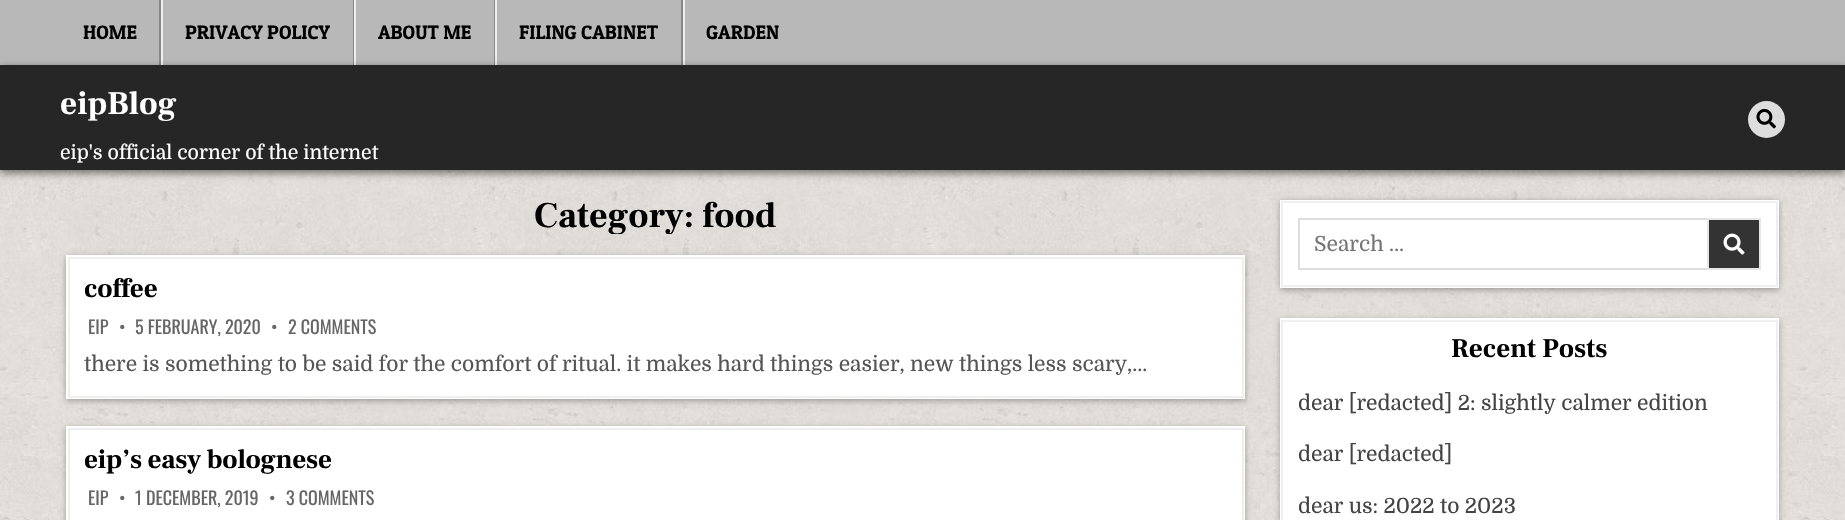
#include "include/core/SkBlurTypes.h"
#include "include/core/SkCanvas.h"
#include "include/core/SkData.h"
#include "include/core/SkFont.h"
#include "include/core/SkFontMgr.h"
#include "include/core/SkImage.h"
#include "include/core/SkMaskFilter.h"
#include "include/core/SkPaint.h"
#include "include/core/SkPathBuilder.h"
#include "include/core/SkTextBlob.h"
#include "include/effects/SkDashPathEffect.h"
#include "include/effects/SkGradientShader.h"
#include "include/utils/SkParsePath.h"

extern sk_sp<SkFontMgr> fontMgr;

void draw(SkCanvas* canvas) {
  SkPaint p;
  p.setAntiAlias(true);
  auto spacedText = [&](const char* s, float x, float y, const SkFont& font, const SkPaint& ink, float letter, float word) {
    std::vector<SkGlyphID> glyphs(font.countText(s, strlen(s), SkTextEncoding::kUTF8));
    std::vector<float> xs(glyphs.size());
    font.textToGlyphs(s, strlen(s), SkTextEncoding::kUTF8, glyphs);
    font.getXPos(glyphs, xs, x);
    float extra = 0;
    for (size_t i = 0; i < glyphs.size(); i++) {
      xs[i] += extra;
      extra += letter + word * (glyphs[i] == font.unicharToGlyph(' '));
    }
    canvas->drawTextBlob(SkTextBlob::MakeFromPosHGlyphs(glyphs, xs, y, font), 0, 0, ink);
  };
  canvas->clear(SK_ColorWHITE);
  canvas->drawImageRect(SkImages::DeferredFromEncodedData(SkData::MakeFromFileName("images/1.png")), SkRect::MakeLTRB(0, 170, 1845, 520), SkSamplingOptions());
  p.setColor(SkColorSetRGB(184, 184, 184));
  canvas->drawRect(SkRect::MakeLTRB(0, 0, 1845, 65), p);
  p.setColor(SkColorSetRGB(136, 136, 136));
  canvas->drawRect(SkRect::MakeLTRB(159, 0, 161, 65), p);
  canvas->drawRect(SkRect::MakeLTRB(353, 0, 354, 65), p);
  p.setColor(SkColorSetRGB(238, 238, 238));
  canvas->drawRect(SkRect::MakeLTRB(161, 0, 163, 65), p);
  p.setColor(SkColorSetRGB(136, 136, 136));
  canvas->drawRect(SkRect::MakeLTRB(494, 0, 495, 65), p);
  p.setColor(SkColorSetRGB(238, 238, 238));
  canvas->drawRect(SkRect::MakeLTRB(354, 0, 356, 65), p);
  p.setColor(SkColorSetRGB(136, 136, 136));
  canvas->drawRect(SkRect::MakeLTRB(681, 0, 683, 65), p);
  p.setColor(SkColorSetRGB(238, 238, 238));
  canvas->drawRect(SkRect::MakeLTRB(495, 0, 497, 65), p);
  canvas->drawRect(SkRect::MakeLTRB(683, 0, 685, 65), p);
  p.setColor(SkColorSetARGB(128, 0, 0, 0));
  p.setMaskFilter(SkMaskFilter::MakeBlur(kNormal_SkBlurStyle, 4));
  canvas->drawRect(SkRect::MakeLTRB(0, 68, 1845, 173), p);
  p.setMaskFilter(nullptr);
  p.setColor(SkColorSetRGB(38, 38, 38));
  canvas->drawRect(SkRect::MakeLTRB(0, 65, 1845, 170), p);
  p.setColor(SkColorSetRGB(221, 221, 221));
  canvas->drawCircle(1766.5f, 119.5f, 18.5f, p);
  canvas->drawImageRect(SkImages::DeferredFromEncodedData(SkData::MakeFromFileName("images/2.png")), SkRect::MakeLTRB(1756, 108, 1776, 129), SkSamplingOptions());
  p.setColor(SkColorSetARGB(77, 0, 0, 0));
  p.setMaskFilter(SkMaskFilter::MakeBlur(kNormal_SkBlurStyle, 3));
  canvas->drawRect(SkRect::MakeLTRB(66, 257, 1245, 401), p);
  p.setMaskFilter(nullptr);
  p.setColor(SK_ColorWHITE);
  canvas->drawRect(SkRect::MakeLTRB(66, 255, 1245, 399), p);
  p.setStyle(SkPaint::kStroke_Style);
  p.setStrokeWidth(2);
  p.setColor(SkColorSetRGB(239, 239, 239));
  canvas->drawRect(SkRect::MakeLTRB(69, 258, 1243, 397), p);
  p.setStyle(SkPaint::kFill_Style);
  p.setColor(SkColorSetARGB(77, 0, 0, 0));
  p.setMaskFilter(SkMaskFilter::MakeBlur(kNormal_SkBlurStyle, 3));
  canvas->drawRect(SkRect::MakeLTRB(66, 428, 1245, 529), p);
  p.setMaskFilter(nullptr);
  p.setColor(SK_ColorWHITE);
  canvas->drawRect(SkRect::MakeLTRB(66, 426, 1245, 520), p);
  p.setStyle(SkPaint::kStroke_Style);
  p.setColor(SkColorSetRGB(239, 239, 239));
  canvas->drawRect(SkRect::MakeLTRB(69, 429, 1243, 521), p);
  p.setStyle(SkPaint::kFill_Style);
  p.setColor(SkColorSetARGB(77, 0, 0, 0));
  p.setMaskFilter(SkMaskFilter::MakeBlur(kNormal_SkBlurStyle, 3));
  canvas->drawRect(SkRect::MakeLTRB(1280, 201, 1779, 290), p);
  p.setMaskFilter(nullptr);
  p.setColor(SK_ColorWHITE);
  canvas->drawRect(SkRect::MakeLTRB(1280, 200, 1779, 288), p);
  p.setStyle(SkPaint::kStroke_Style);
  p.setColor(SkColorSetRGB(239, 239, 239));
  canvas->drawRect(SkRect::MakeLTRB(1282, 202, 1777, 286), p);
  p.setColor(SkColorSetRGB(221, 221, 221));
  canvas->drawRect(SkRect::MakeLTRB(1299, 219, 1760, 269), p);
  p.setStyle(SkPaint::kFill_Style);
  p.setColor(SkColorSetRGB(51, 51, 51));
  canvas->drawRect(SkRect::MakeLTRB(1708, 219, 1760, 269), p);
  p.setStyle(SkPaint::kStroke_Style);
  p.setColor(SkColorSetRGB(230, 230, 230));
  canvas->drawRect(SkRect::MakeLTRB(1708, 219, 1760, 269), p);
  canvas->drawImageRect(SkImages::DeferredFromEncodedData(SkData::MakeFromFileName("images/3.png")), SkRect::MakeLTRB(1723, 233, 1745, 255), SkSamplingOptions());
  p.setStyle(SkPaint::kFill_Style);
  p.setColor(SkColorSetARGB(77, 0, 0, 0));
  p.setMaskFilter(SkMaskFilter::MakeBlur(kNormal_SkBlurStyle, 3));
  canvas->drawRect(SkRect::MakeLTRB(1280, 320, 1779, 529), p);
  p.setMaskFilter(nullptr);
  p.setColor(SK_ColorWHITE);
  canvas->drawRect(SkRect::MakeLTRB(1280, 318, 1779, 520), p);
  p.setStyle(SkPaint::kStroke_Style);
  p.setColor(SkColorSetRGB(239, 239, 239));
  canvas->drawRect(SkRect::MakeLTRB(1282, 321, 1777, 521), p);
  SkFont font1(fontMgr->matchFamilyStyle("Patua One", SkFontStyle::Normal()), 19.5f);
  font1.setSubpixel(true);
  p.setStyle(SkPaint::kFill_Style);
  p.setColor(SK_ColorBLACK);
  canvas->drawString("HOME", 83, 39, font1, p);
  canvas->drawString("PRIVACY POLICY", 185, 39, font1, p);
  canvas->drawString("ABOUT ME", 378, 39, font1, p);
  canvas->drawString("FILING CABINET", 519, 39, font1, p);
  canvas->drawString("GARDEN", 706, 39, font1, p);
  SkFont font2(fontMgr->matchFamilyStyle("Frank Ruhl Libre", SkFontStyle::Bold()), 33);
  font2.setSubpixel(true);
  p.setColor(SK_ColorWHITE);
  canvas->drawString("eipBlog", 60, 114, font2, p);
  SkFont font3(fontMgr->matchFamilyStyle("Domine", SkFontStyle::Normal()), 19.5f);
  font3.setSubpixel(true);
  canvas->drawString("eip's official corner of the internet", 60, 159, font3, p);
  canvas->save();
  canvas->clipRect(SkRect::MakeLTRB(66, 198, 1245, 234));
  SkFont font4(fontMgr->matchFamilyStyle("Frank Ruhl Libre", SkFontStyle::Bold()), 36);
  font4.setSubpixel(true);
  p.setColor(SK_ColorBLACK);
  canvas->drawString("Category:", 534, 227, font4, p);
  canvas->restore();
  canvas->drawString("food", 702, 227, font4, p);
  SkFont font5(fontMgr->matchFamilyStyle("Frank Ruhl Libre", SkFontStyle::Bold()), 27);
  font5.setSubpixel(true);
  spacedText("coffee", 84, 297, font5, p, -0.25f, 0);
  SkFont font6(fontMgr->matchFamilyStyle("Oswald", SkFontStyle::Normal()), 18);
  font6.setSubpixel(true);
  p.setColor(SkColorSetRGB(102, 102, 102));
  canvas->drawString("EIP", 88, 334, font6, p);
  canvas->drawString("•", 119, 334, font6, p);
  canvas->drawString("5 FEBRUARY, 2020", 135, 334, font6, p);
  canvas->drawString("•", 271, 334, font6, p);
  canvas->drawString("2 COMMENTS", 288, 334, font6, p);
  SkFont font7(fontMgr->matchFamilyStyle("Domine", SkFontStyle::Normal()), 21);
  font7.setSubpixel(true);
  p.setColor(SkColorSetRGB(85, 85, 85));
  canvas->drawString("there is something to be said for the comfort of ritual. it makes hard things easier, new things less scary,…", 84, 371, font7, p);
  p.setColor(SK_ColorBLACK);
  spacedText("eip’s easy bolognese", 84, 468, font5, p, -0.25f, 0);
  p.setColor(SkColorSetRGB(102, 102, 102));
  canvas->drawString("EIP", 88, 505, font6, p);
  canvas->drawString("•", 119, 505, font6, p);
  canvas->drawString("1 DECEMBER, 2019", 135, 505, font6, p);
  canvas->drawString("•", 269, 505, font6, p);
  canvas->drawString("3 COMMENTS", 286, 505, font6, p);
  p.setColor(SkColorSetRGB(117, 117, 117));
  canvas->drawString("Search …", 1314, 251, font7, p);
  p.setColor(SK_ColorBLACK);
  canvas->drawString("Recent Posts", 1451, 357, font5, p);
  p.setColor(SkColorSetRGB(68, 68, 68));
  canvas->drawString("dear [redacted] 2: slightly calmer edition", 1298, 410, font7, p);
  canvas->drawString("dear [redacted]", 1298, 461, font7, p);
  canvas->drawString("dear us: 2022 to 2023", 1298, 513, font7, p);
}
